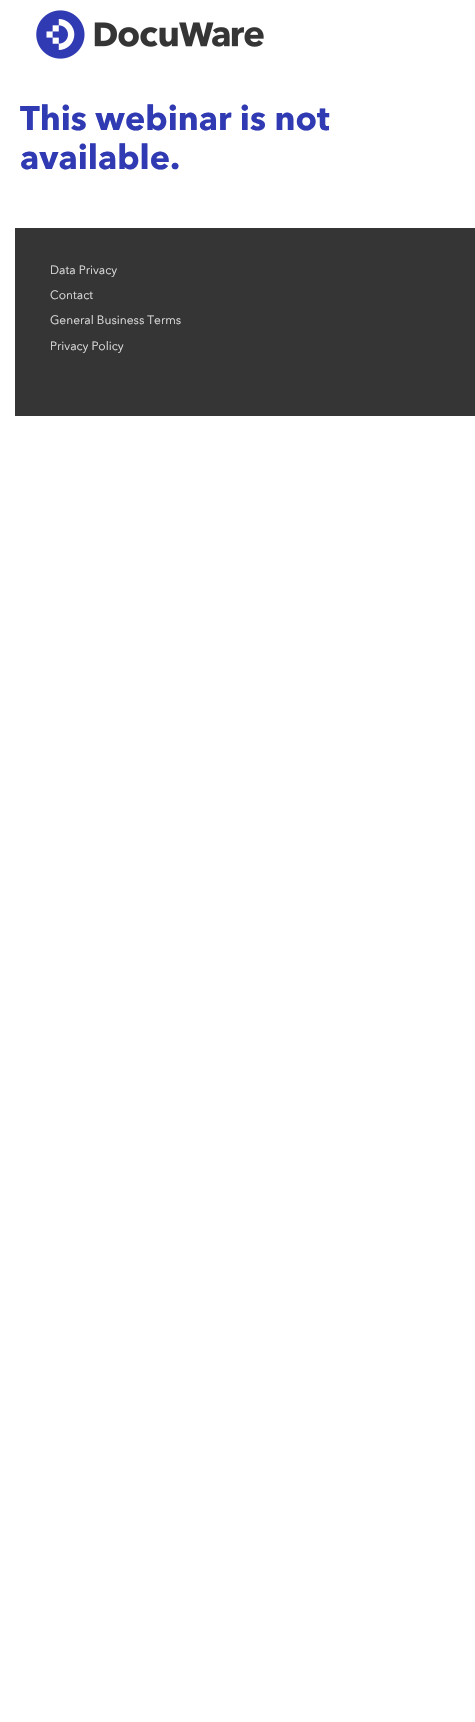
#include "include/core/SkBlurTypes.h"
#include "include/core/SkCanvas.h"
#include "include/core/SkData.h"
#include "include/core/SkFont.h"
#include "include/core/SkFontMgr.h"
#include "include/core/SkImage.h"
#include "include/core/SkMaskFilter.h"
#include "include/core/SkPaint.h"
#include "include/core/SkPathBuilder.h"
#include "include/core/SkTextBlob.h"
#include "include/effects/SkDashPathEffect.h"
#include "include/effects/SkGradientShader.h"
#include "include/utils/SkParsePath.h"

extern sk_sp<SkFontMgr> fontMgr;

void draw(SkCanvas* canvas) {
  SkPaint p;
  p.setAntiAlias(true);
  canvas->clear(SK_ColorWHITE);
  canvas->drawImageRect(SkImages::DeferredFromEncodedData(SkData::MakeFromFileName("images/1.png")), SkRect::MakeLTRB(36, 10, 264, 59), SkSamplingOptions());
  p.setColor(SkColorSetRGB(53, 53, 53));
  canvas->drawRect(SkRect::MakeLTRB(15, 228, 475, 416), p);
  SkFont font1(fontMgr->matchFamilyStyle("Avenir Next", SkFontStyle::Bold()), 34);
  font1.setSubpixel(true);
  p.setColor(SkColorSetRGB(48, 58, 178));
  canvas->drawString("This webinar is not", 20, 130, font1, p);
  canvas->drawString("available.", 20, 169, font1, p);
  SkFont font2(fontMgr->matchFamilyStyle("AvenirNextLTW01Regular", SkFontStyle::Normal()), 12);
  font2.setSubpixel(true);
  p.setColor(SkColorSetRGB(222, 222, 222));
  canvas->drawString("Data Privacy", 50, 274, font2, p);
  canvas->drawString("Contact", 50, 299, font2, p);
  canvas->drawString("General Business Terms", 50, 324, font2, p);
  canvas->drawString("Privacy Policy", 50, 350, font2, p);
}
